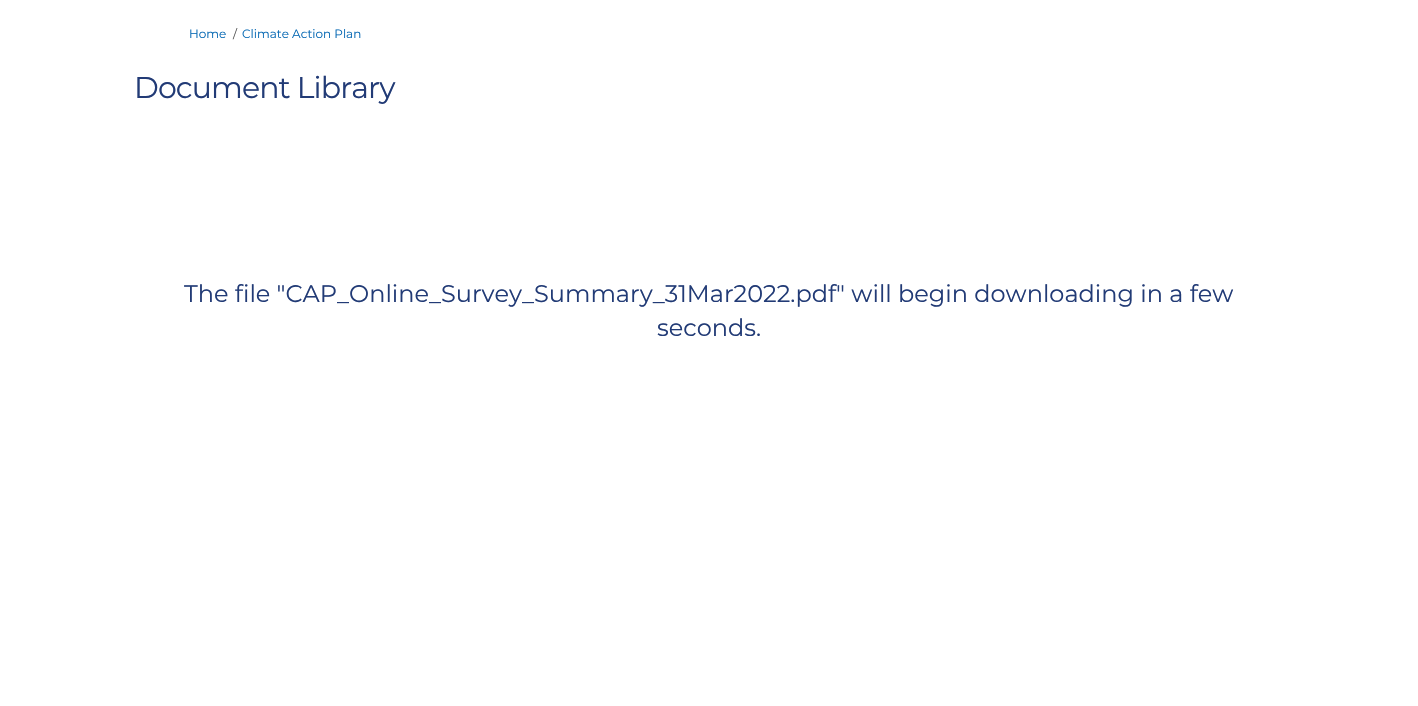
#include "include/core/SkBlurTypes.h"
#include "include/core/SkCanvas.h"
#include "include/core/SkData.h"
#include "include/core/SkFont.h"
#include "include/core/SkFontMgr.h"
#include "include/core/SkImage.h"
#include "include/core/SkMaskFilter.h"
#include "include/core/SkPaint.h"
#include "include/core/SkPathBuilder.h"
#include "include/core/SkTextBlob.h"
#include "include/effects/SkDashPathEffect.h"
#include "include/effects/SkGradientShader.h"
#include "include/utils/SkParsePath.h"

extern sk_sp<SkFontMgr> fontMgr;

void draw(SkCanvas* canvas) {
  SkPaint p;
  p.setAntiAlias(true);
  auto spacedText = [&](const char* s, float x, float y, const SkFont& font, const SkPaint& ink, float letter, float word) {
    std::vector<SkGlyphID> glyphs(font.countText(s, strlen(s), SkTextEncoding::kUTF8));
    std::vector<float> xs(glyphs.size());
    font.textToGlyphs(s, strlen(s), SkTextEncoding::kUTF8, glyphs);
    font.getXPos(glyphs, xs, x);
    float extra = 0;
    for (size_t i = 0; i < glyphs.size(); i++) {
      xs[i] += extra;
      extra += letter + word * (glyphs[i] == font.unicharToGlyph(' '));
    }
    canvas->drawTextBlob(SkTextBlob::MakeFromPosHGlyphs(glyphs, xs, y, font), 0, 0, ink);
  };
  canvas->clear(SK_ColorWHITE);
  SkFont font1(fontMgr->matchFamilyStyle("Montserrat", SkFontStyle::Normal()), 12);
  font1.setSubpixel(true);
  p.setColor(SkColorSetRGB(7, 105, 180));
  canvas->drawString("Home", 189, 38, font1, p);
  p.setColor(SkColorSetRGB(85, 85, 85));
  canvas->drawString("/", 233, 38, font1, p);
  p.setColor(SkColorSetRGB(7, 105, 180));
  canvas->drawString("Climate Action Plan", 242, 38, font1, p);
  SkFont font2(fontMgr->matchFamilyStyle("Montserrat", SkFontStyle::Normal()), 30);
  font2.setSubpixel(true);
  p.setColor(SkColorSetRGB(34, 59, 118));
  spacedText("Document Library", 134, 98, font2, p, -0.9f, 0);
  SkFont font3(fontMgr->matchFamilyStyle("Montserrat", SkFontStyle::Normal()), 24);
  font3.setSubpixel(true);
  canvas->drawString("The file \"CAP_Online_Survey_Summary_31Mar2022.pdf\" will begin downloading in a few", 184, 302, font3, p);
  canvas->drawString("seconds.", 657, 336, font3, p);
}
